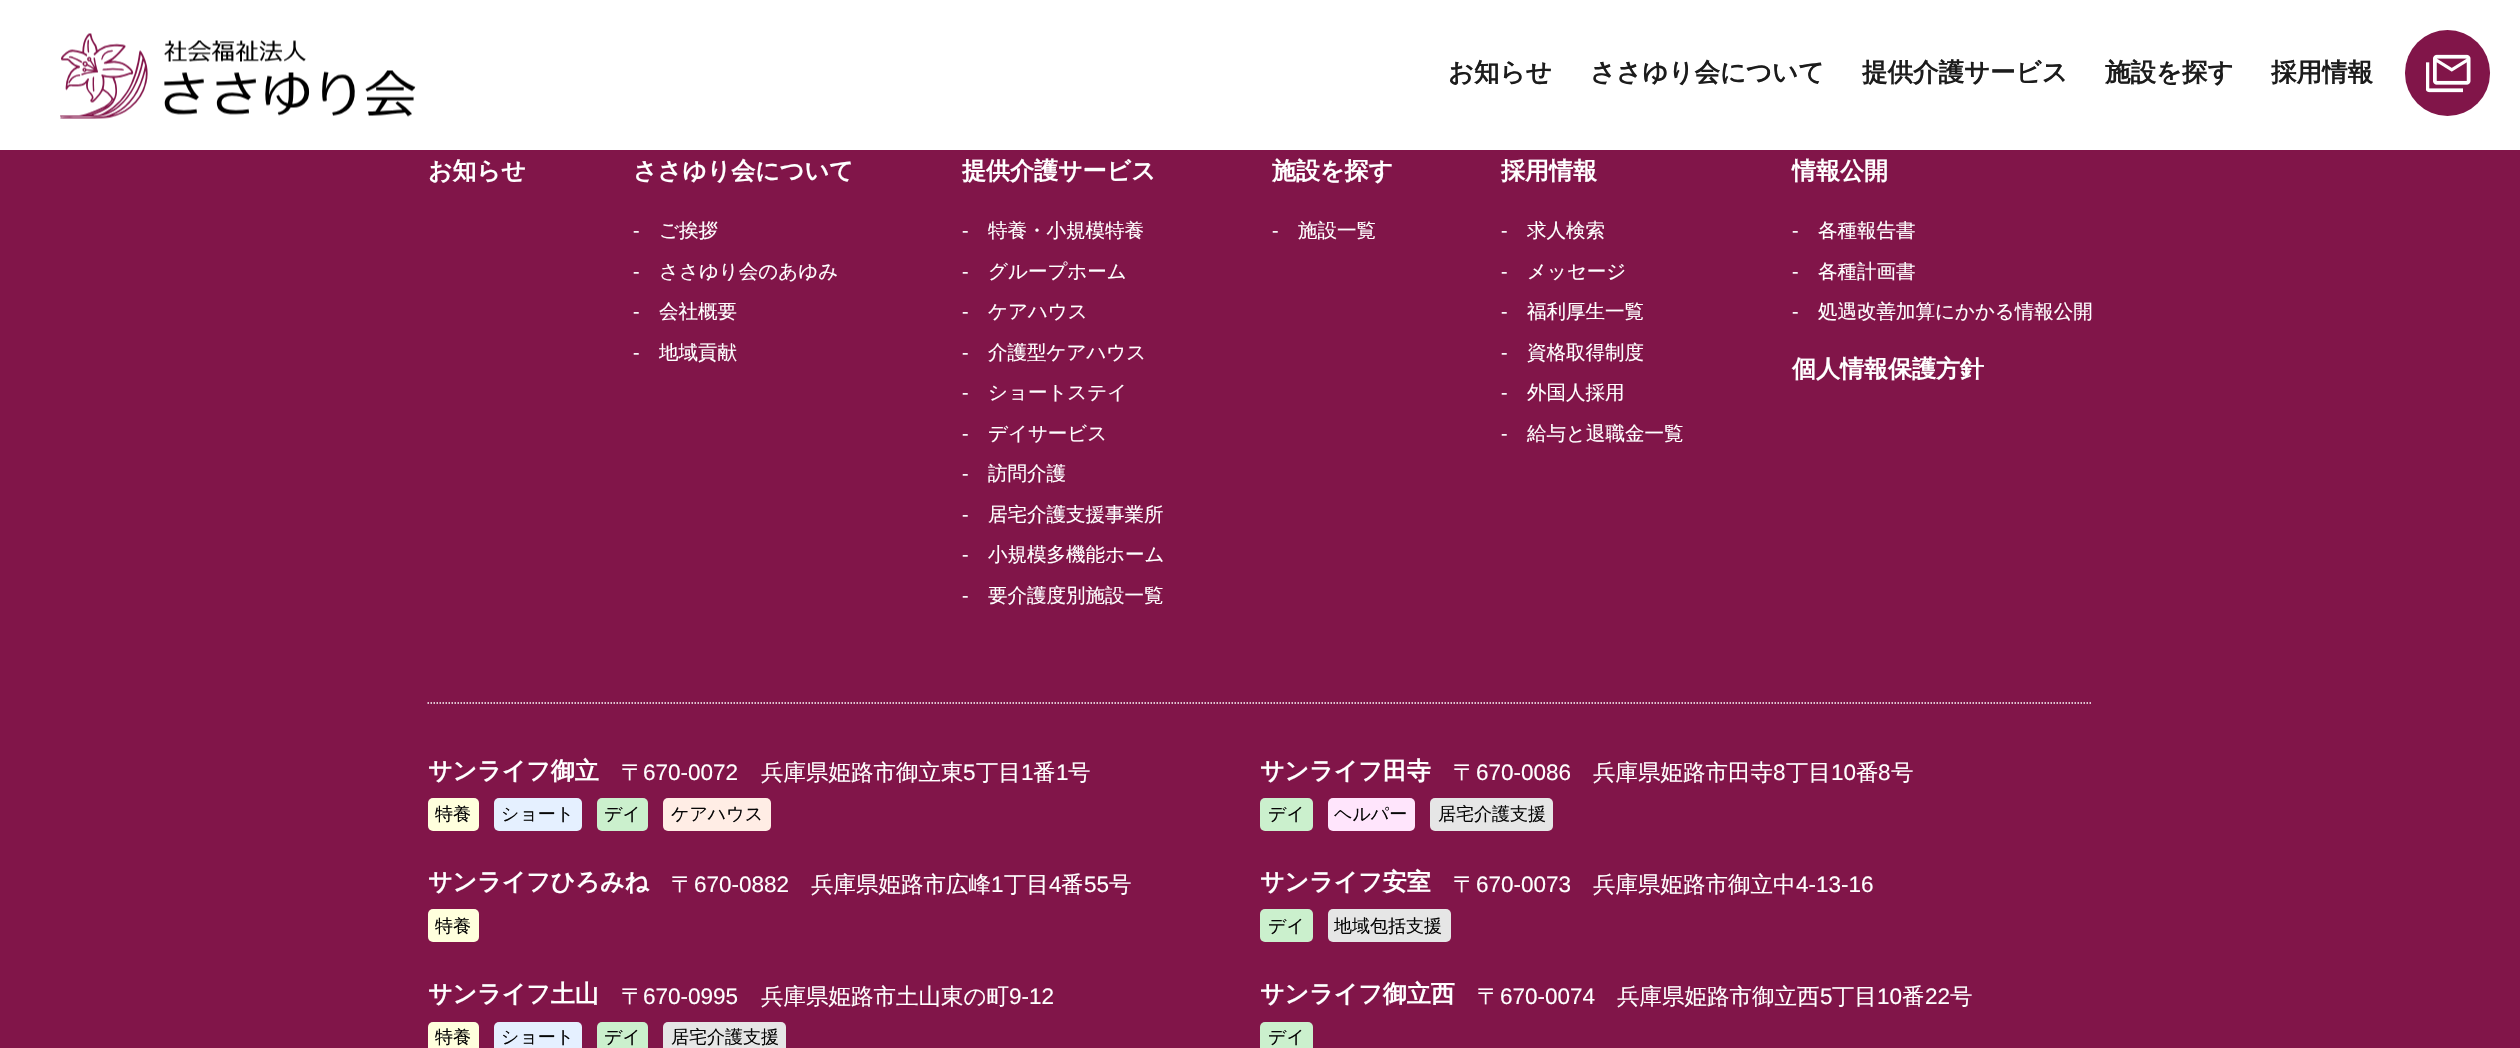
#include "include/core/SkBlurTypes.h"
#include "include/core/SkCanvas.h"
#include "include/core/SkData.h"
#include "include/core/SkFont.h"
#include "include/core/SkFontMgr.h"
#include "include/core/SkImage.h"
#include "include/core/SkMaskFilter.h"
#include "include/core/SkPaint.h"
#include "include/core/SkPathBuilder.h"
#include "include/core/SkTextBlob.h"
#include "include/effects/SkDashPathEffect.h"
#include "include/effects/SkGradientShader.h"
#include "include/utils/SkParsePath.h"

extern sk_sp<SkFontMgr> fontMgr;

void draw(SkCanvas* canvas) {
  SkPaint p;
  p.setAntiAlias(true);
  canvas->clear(SkColorSetRGB(129, 21, 73));
  p.setColor(SK_ColorWHITE);
  canvas->drawRect(SkRect::MakeLTRB(0, 0, 2520, 150), p);
  canvas->drawImageRect(SkImages::DeferredFromEncodedData(SkData::MakeFromFileName("images/1.png")), SkRect::MakeLTRB(60, 33, 416, 119), SkSamplingOptions());
  p.setColor(SkColorSetRGB(129, 21, 73));
  canvas->drawRoundRect(SkRect::MakeLTRB(2405, 30, 2490, 116), 42.5f, 42.5f, p);
  canvas->drawImageRect(SkImages::DeferredFromEncodedData(SkData::MakeFromFileName("images/2.png")), SkRect::MakeLTRB(2426, 54, 2471, 93), SkSamplingOptions());
  p.setStyle(SkPaint::kStroke_Style);
  p.setStrokeWidth(1.5f);
  p.setColor(SK_ColorWHITE);
  p.setPathEffect(SkDashPathEffect::Make({{1.5f, 1.5f}}, 0));
  canvas->drawPath(SkPathBuilder().moveTo(427.5f, 703).lineTo(2092.5f, 703).detach(), p);
  p.setPathEffect(nullptr);
  p.setStyle(SkPaint::kFill_Style);
  p.setColor(SkColorSetRGB(255, 255, 221));
  canvas->drawRoundRect(SkRect::MakeLTRB(428, 798, 479, 831), 5, 5, p);
  p.setColor(SkColorSetRGB(229, 240, 255));
  canvas->drawRoundRect(SkRect::MakeLTRB(494, 798, 582, 831), 5, 5, p);
  p.setColor(SkColorSetRGB(203, 240, 205));
  canvas->drawRoundRect(SkRect::MakeLTRB(597, 798, 648, 831), 5, 5, p);
  p.setColor(SkColorSetRGB(255, 237, 229));
  canvas->drawRoundRect(SkRect::MakeLTRB(663, 798, 771, 831), 5, 5, p);
  p.setColor(SkColorSetRGB(255, 255, 221));
  canvas->drawRoundRect(SkRect::MakeLTRB(428, 909, 479, 942), 5, 5, p);
  canvas->drawRoundRect(SkRect::MakeLTRB(428, 1022, 479, 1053), 5, 5, p);
  p.setColor(SkColorSetRGB(229, 240, 255));
  canvas->drawRoundRect(SkRect::MakeLTRB(494, 1022, 582, 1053), 5, 5, p);
  p.setColor(SkColorSetRGB(203, 240, 205));
  canvas->drawRoundRect(SkRect::MakeLTRB(597, 1022, 648, 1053), 5, 5, p);
  p.setColor(SkColorSetRGB(230, 230, 230));
  canvas->drawRoundRect(SkRect::MakeLTRB(663, 1022, 786, 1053), 5, 5, p);
  p.setColor(SkColorSetRGB(203, 240, 205));
  canvas->drawRoundRect(SkRect::MakeLTRB(1260, 798, 1313, 831), 5, 5, p);
  p.setColor(SkColorSetRGB(255, 229, 252));
  canvas->drawRoundRect(SkRect::MakeLTRB(1328, 798, 1415, 831), 5, 5, p);
  p.setColor(SkColorSetRGB(230, 230, 230));
  canvas->drawRoundRect(SkRect::MakeLTRB(1430, 798, 1553, 831), 5, 5, p);
  p.setColor(SkColorSetRGB(203, 240, 205));
  canvas->drawRoundRect(SkRect::MakeLTRB(1260, 909, 1313, 942), 5, 5, p);
  p.setColor(SkColorSetRGB(230, 230, 230));
  canvas->drawRoundRect(SkRect::MakeLTRB(1328, 909, 1451, 942), 5, 5, p);
  p.setColor(SkColorSetRGB(203, 240, 205));
  canvas->drawRoundRect(SkRect::MakeLTRB(1260, 1022, 1313, 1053), 5, 5, p);
  SkFont font1(fontMgr->matchFamilyStyle("WenQuanYi Zen Hei", SkFontStyle::Bold()), 25.5f);
  font1.setSubpixel(true);
  p.setColor(SkColorSetRGB(28, 28, 28));
  canvas->drawString("お知らせ", 1448, 81, font1, p);
  canvas->drawString("ささゆり会について", 1590, 81, font1, p);
  canvas->drawString("提供介護サービス", 1862, 81, font1, p);
  canvas->drawString("施設を探す", 2105, 81, font1, p);
  canvas->drawString("採用情報", 2271, 81, font1, p);
  SkFont font2(fontMgr->matchFamilyStyle("WenQuanYi Zen Hei", SkFontStyle::Bold()), 24);
  font2.setSubpixel(true);
  p.setColor(SK_ColorWHITE);
  canvas->drawString("お知らせ", 428, 179, font2, p);
  canvas->drawString("ささゆり会について", 633, 179, font2, p);
  SkFont font3(fontMgr->matchFamilyStyle("Liberation Sans", SkFontStyle::Normal()), 19.5f);
  font3.setSubpixel(true);
  canvas->drawString("-", 633, 237, font3, p);
  SkFont font4(fontMgr->matchFamilyStyle("WenQuanYi Zen Hei", SkFontStyle(500, SkFontStyle::kNormal_Width, SkFontStyle::kUpright_Slant)), 19.5f);
  font4.setSubpixel(true);
  canvas->drawString("ご挨拶", 659, 237, font4, p);
  canvas->drawString("-", 633, 278, font3, p);
  canvas->drawString("ささゆり会のあゆみ", 659, 278, font4, p);
  canvas->drawString("-", 633, 318, font3, p);
  canvas->drawString("会社概要", 659, 318, font4, p);
  canvas->drawString("-", 633, 359, font3, p);
  canvas->drawString("地域貢献", 659, 359, font4, p);
  canvas->drawString("提供介護サービス", 962, 179, font2, p);
  canvas->drawString("-", 962, 237, font3, p);
  canvas->drawString("特養・小規模特養", 988, 237, font4, p);
  canvas->drawString("-", 962, 278, font3, p);
  canvas->drawString("グループホーム", 988, 278, font4, p);
  canvas->drawString("-", 962, 318, font3, p);
  canvas->drawString("ケアハウス", 988, 318, font4, p);
  canvas->drawString("-", 962, 359, font3, p);
  canvas->drawString("介護型ケアハウス", 988, 359, font4, p);
  canvas->drawString("-", 962, 399, font3, p);
  canvas->drawString("ショートステイ", 988, 399, font4, p);
  canvas->drawString("-", 962, 440, font3, p);
  canvas->drawString("デイサービス", 988, 440, font4, p);
  canvas->drawString("-", 962, 480, font3, p);
  canvas->drawString("訪問介護", 988, 480, font4, p);
  canvas->drawString("-", 962, 521, font3, p);
  canvas->drawString("居宅介護支援事業所", 988, 521, font4, p);
  canvas->drawString("-", 962, 561, font3, p);
  canvas->drawString("小規模多機能ホーム", 988, 561, font4, p);
  canvas->drawString("-", 962, 602, font3, p);
  canvas->drawString("要介護度別施設一覧", 988, 602, font4, p);
  canvas->drawString("施設を探す", 1272, 179, font2, p);
  canvas->drawString("-", 1272, 237, font3, p);
  canvas->drawString("施設一覧", 1298, 237, font4, p);
  canvas->drawString("採用情報", 1501, 179, font2, p);
  canvas->drawString("-", 1501, 237, font3, p);
  canvas->drawString("求人検索", 1527, 237, font4, p);
  canvas->drawString("-", 1501, 278, font3, p);
  canvas->drawString("メッセージ", 1527, 278, font4, p);
  canvas->drawString("-", 1501, 318, font3, p);
  canvas->drawString("福利厚生一覧", 1527, 318, font4, p);
  canvas->drawString("-", 1501, 359, font3, p);
  canvas->drawString("資格取得制度", 1527, 359, font4, p);
  canvas->drawString("-", 1501, 399, font3, p);
  canvas->drawString("外国人採用", 1527, 399, font4, p);
  canvas->drawString("-", 1501, 440, font3, p);
  canvas->drawString("給与と退職金一覧", 1527, 440, font4, p);
  canvas->drawString("情報公開", 1792, 179, font2, p);
  canvas->drawString("-", 1792, 237, font3, p);
  canvas->drawString("各種報告書", 1818, 237, font4, p);
  canvas->drawString("-", 1792, 278, font3, p);
  canvas->drawString("各種計画書", 1818, 278, font4, p);
  canvas->drawString("-", 1792, 318, font3, p);
  canvas->drawString("処遇改善加算にかかる情報公開", 1818, 318, font4, p);
  canvas->drawString("個人情報保護方針", 1792, 377, font2, p);
  canvas->drawString("サンライフ御立", 428, 779, font2, p);
  SkFont font5(fontMgr->matchFamilyStyle("WenQuanYi Zen Hei", SkFontStyle(500, SkFontStyle::kNormal_Width, SkFontStyle::kUpright_Slant)), 22.5f);
  font5.setSubpixel(true);
  canvas->drawString("〒", 621, 780, font5, p);
  SkFont font6(fontMgr->matchFamilyStyle("Liberation Sans", SkFontStyle::Normal()), 22.5f);
  font6.setSubpixel(true);
  canvas->drawString("670-0072", 643, 780, font6, p);
  canvas->drawString("兵庫県姫路市御立東", 761, 780, font5, p);
  canvas->drawString("5", 963, 780, font6, p);
  canvas->drawString("丁目", 976, 780, font5, p);
  canvas->drawString("1", 1021, 780, font6, p);
  canvas->drawString("番", 1033, 780, font5, p);
  canvas->drawString("1", 1056, 780, font6, p);
  canvas->drawString("号", 1068, 780, font5, p);
  SkFont font7(fontMgr->matchFamilyStyle("WenQuanYi Zen Hei", SkFontStyle(500, SkFontStyle::kNormal_Width, SkFontStyle::kUpright_Slant)), 18);
  font7.setSubpixel(true);
  p.setColor(SkColorSetRGB(7, 7, 7));
  canvas->drawString("特養", 435, 820, font7, p);
  canvas->drawString("ショート", 501, 820, font7, p);
  canvas->drawString("デイ", 604, 820, font7, p);
  canvas->drawString("ケアハウス", 671, 820, font7, p);
  p.setColor(SK_ColorWHITE);
  canvas->drawString("サンライフひろみね", 428, 890, font2, p);
  canvas->drawString("〒", 671, 892, font5, p);
  canvas->drawString("670-0882", 694, 892, font6, p);
  canvas->drawString("兵庫県姫路市広峰", 811, 892, font5, p);
  canvas->drawString("1", 991, 892, font6, p);
  canvas->drawString("丁目", 1004, 892, font5, p);
  canvas->drawString("4", 1049, 892, font6, p);
  canvas->drawString("番", 1061, 892, font5, p);
  canvas->drawString("55", 1084, 892, font6, p);
  canvas->drawString("号", 1109, 892, font5, p);
  p.setColor(SkColorSetRGB(7, 7, 7));
  canvas->drawString("特養", 435, 932, font7, p);
  p.setColor(SK_ColorWHITE);
  canvas->drawString("サンライフ土山", 428, 1002, font2, p);
  canvas->drawString("〒", 621, 1004, font5, p);
  canvas->drawString("670-0995", 643, 1004, font6, p);
  canvas->drawString("兵庫県姫路市土山東の町", 761, 1004, font5, p);
  canvas->drawString("9-12", 1009, 1004, font6, p);
  p.setColor(SkColorSetRGB(7, 7, 7));
  canvas->drawString("特養", 435, 1043, font7, p);
  canvas->drawString("ショート", 501, 1043, font7, p);
  canvas->drawString("デイ", 604, 1043, font7, p);
  canvas->drawString("居宅介護支援", 671, 1043, font7, p);
  p.setColor(SK_ColorWHITE);
  canvas->drawString("サンライフ田寺", 1260, 779, font2, p);
  canvas->drawString("〒", 1453, 780, font5, p);
  canvas->drawString("670-0086", 1476, 780, font6, p);
  canvas->drawString("兵庫県姫路市田寺", 1593, 780, font5, p);
  canvas->drawString("8", 1773, 780, font6, p);
  canvas->drawString("丁目", 1786, 780, font5, p);
  canvas->drawString("10", 1831, 780, font6, p);
  canvas->drawString("番", 1856, 780, font5, p);
  canvas->drawString("8", 1878, 780, font6, p);
  canvas->drawString("号", 1891, 780, font5, p);
  p.setColor(SkColorSetRGB(7, 7, 7));
  canvas->drawString("デイ", 1268, 820, font7, p);
  canvas->drawString("ヘルパー", 1334, 820, font7, p);
  canvas->drawString("居宅介護支援", 1438, 820, font7, p);
  p.setColor(SK_ColorWHITE);
  canvas->drawString("サンライフ安室", 1260, 890, font2, p);
  canvas->drawString("〒", 1453, 892, font5, p);
  canvas->drawString("670-0073", 1476, 892, font6, p);
  canvas->drawString("兵庫県姫路市御立中", 1593, 892, font5, p);
  canvas->drawString("4-13-16", 1796, 892, font6, p);
  p.setColor(SkColorSetRGB(7, 7, 7));
  canvas->drawString("デイ", 1268, 932, font7, p);
  canvas->drawString("地域包括支援", 1334, 932, font7, p);
  p.setColor(SK_ColorWHITE);
  canvas->drawString("サンライフ御立西", 1260, 1002, font2, p);
  canvas->drawString("〒", 1477, 1004, font5, p);
  canvas->drawString("670-0074", 1500, 1004, font6, p);
  canvas->drawString("兵庫県姫路市御立西", 1617, 1004, font5, p);
  canvas->drawString("5", 1820, 1004, font6, p);
  canvas->drawString("丁目", 1832, 1004, font5, p);
  canvas->drawString("10", 1877, 1004, font6, p);
  canvas->drawString("番", 1902, 1004, font5, p);
  canvas->drawString("22", 1925, 1004, font6, p);
  canvas->drawString("号", 1950, 1004, font5, p);
  p.setColor(SkColorSetRGB(7, 7, 7));
  canvas->drawString("デイ", 1268, 1043, font7, p);
}
